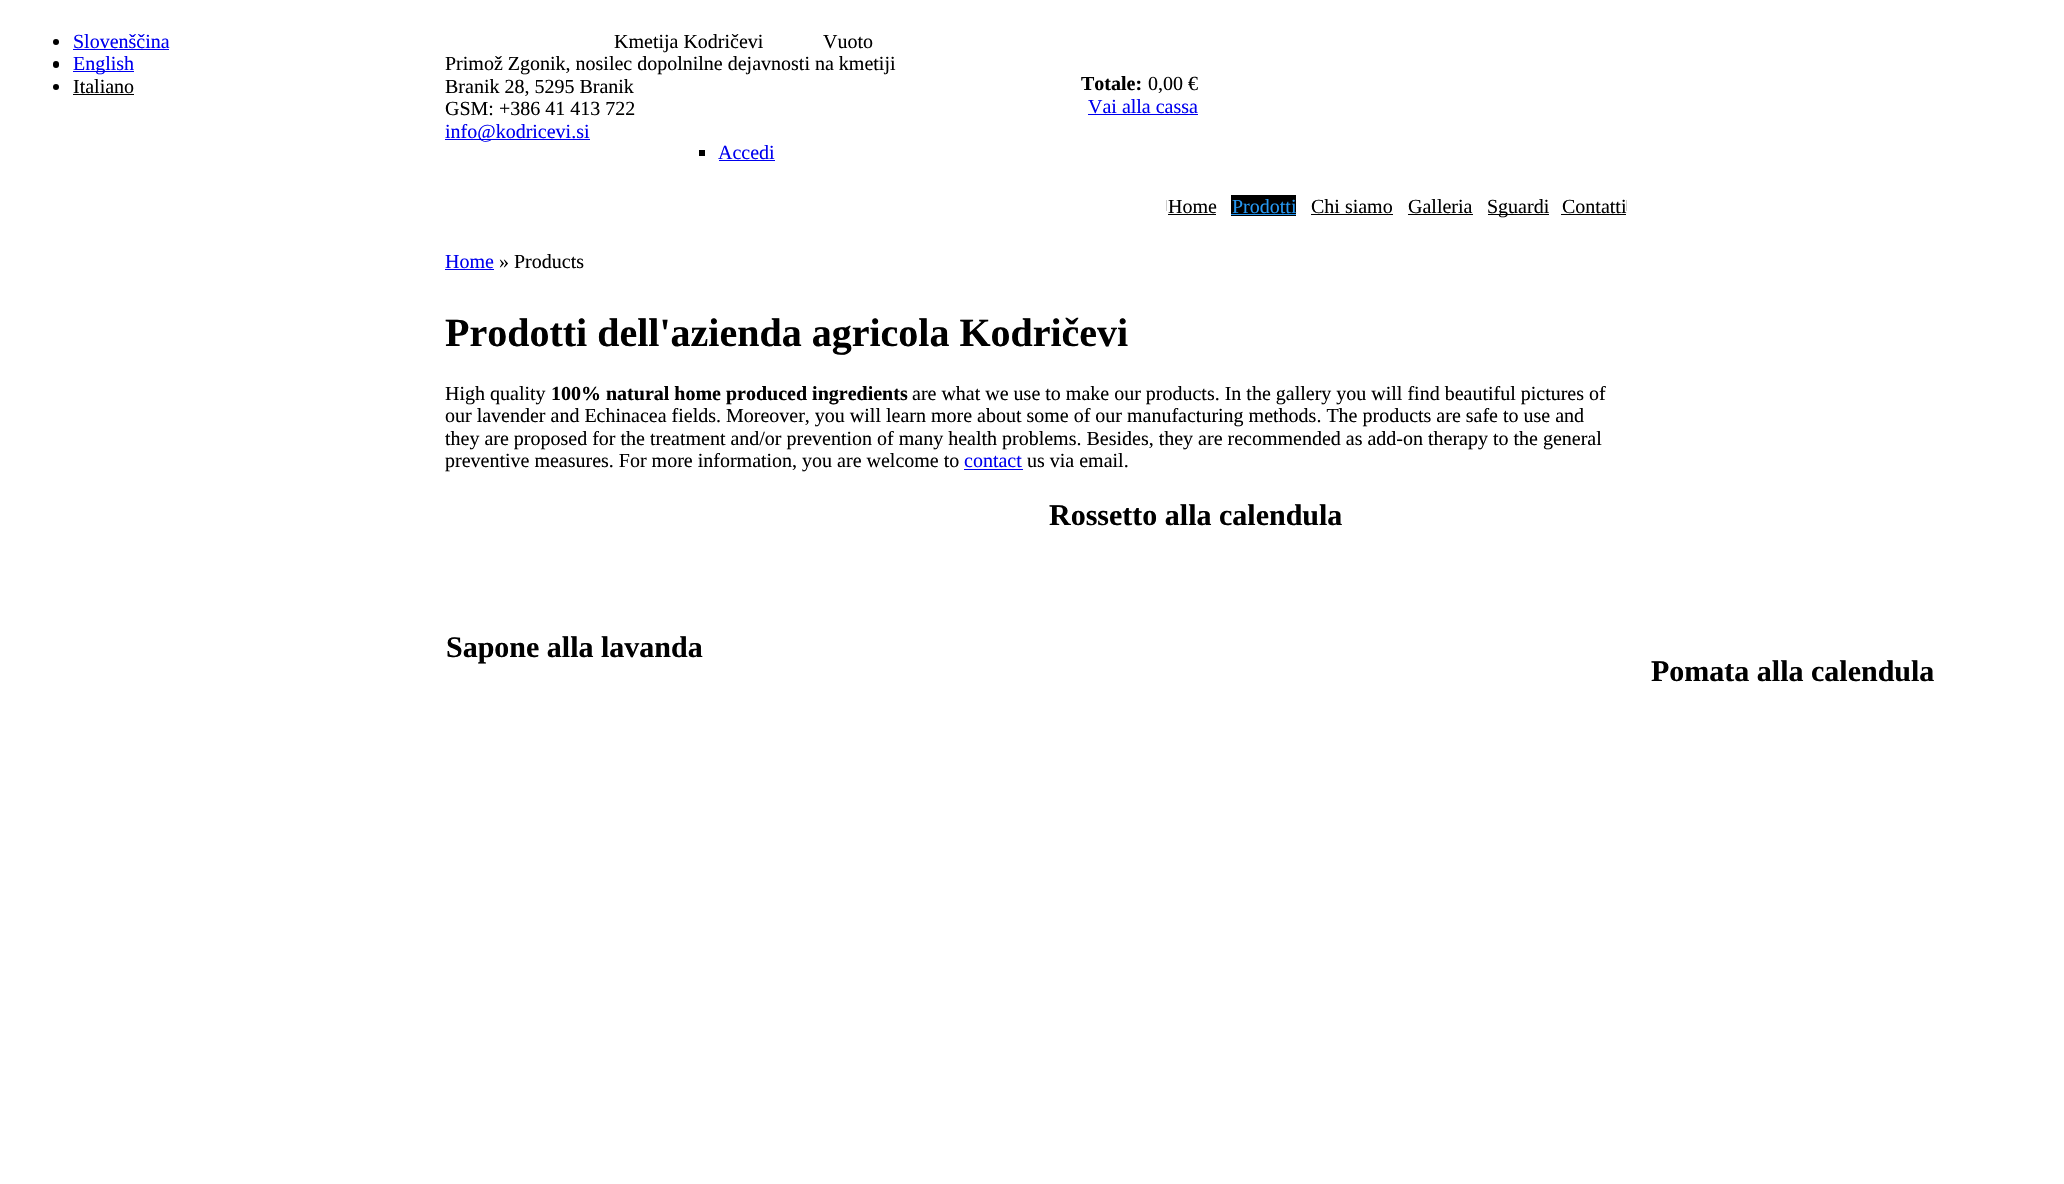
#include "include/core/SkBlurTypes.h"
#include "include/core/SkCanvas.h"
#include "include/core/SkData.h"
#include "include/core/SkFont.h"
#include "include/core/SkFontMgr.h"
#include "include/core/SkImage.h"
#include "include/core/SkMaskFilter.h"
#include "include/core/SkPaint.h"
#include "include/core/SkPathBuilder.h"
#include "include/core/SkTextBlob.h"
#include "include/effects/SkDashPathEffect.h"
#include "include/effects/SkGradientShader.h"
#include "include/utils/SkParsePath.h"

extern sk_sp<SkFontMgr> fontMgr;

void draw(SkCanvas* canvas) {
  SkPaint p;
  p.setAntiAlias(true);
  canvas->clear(SK_ColorWHITE);
  p.setColor(SK_ColorBLACK);
  canvas->drawCircle(56, 42, 3, p);
  p.setColor(SkColorSetRGB(0, 0, 238));
  canvas->drawRect(SkRect::MakeLTRB(73, 49, 169, 50), p);
  p.setColor(SK_ColorBLACK);
  canvas->drawRoundRect(SkRect::MakeLTRB(53, 61, 59, 68), 3, 3, p);
  p.setColor(SkColorSetRGB(0, 0, 238));
  canvas->drawRect(SkRect::MakeLTRB(73, 71, 134, 72), p);
  p.setColor(SK_ColorBLACK);
  canvas->drawCircle(56, 87, 3, p);
  canvas->drawRect(SkRect::MakeLTRB(73, 94, 134, 95), p);
  canvas->drawRect(SkRect::MakeLTRB(699, 150, 705, 156), p);
  p.setColor(SkColorSetRGB(0, 0, 238));
  canvas->drawRect(SkRect::MakeLTRB(719, 160, 775, 161), p);
  canvas->drawRect(SkRect::MakeLTRB(1088, 114, 1198, 115), p);
  canvas->drawRect(SkRect::MakeLTRB(445, 139, 590, 140), p);
  p.setColor(SkColorSetRGB(204, 204, 204));
  canvas->drawRect(SkRect::MakeLTRB(1166, 200, 1167, 211), p);
  p.setColor(SK_ColorBLACK);
  canvas->drawRect(SkRect::MakeLTRB(1168, 214, 1216, 215), p);
  canvas->drawRect(SkRect::MakeLTRB(1231, 195, 1296, 216), p);
  p.setColor(SkColorSetRGB(38, 152, 242));
  canvas->drawRect(SkRect::MakeLTRB(1231, 214, 1296, 215), p);
  p.setColor(SK_ColorBLACK);
  canvas->drawRect(SkRect::MakeLTRB(1311, 214, 1393, 215), p);
  canvas->drawRect(SkRect::MakeLTRB(1408, 214, 1473, 215), p);
  canvas->drawRect(SkRect::MakeLTRB(1488, 214, 1549, 215), p);
  p.setColor(SkColorSetRGB(204, 204, 204));
  canvas->drawRect(SkRect::MakeLTRB(1626, 200, 1627, 211), p);
  p.setColor(SK_ColorBLACK);
  canvas->drawRect(SkRect::MakeLTRB(1561, 214, 1626, 215), p);
  p.setColor(SkColorSetRGB(0, 0, 238));
  canvas->drawRect(SkRect::MakeLTRB(445, 269, 494, 270), p);
  canvas->drawRect(SkRect::MakeLTRB(964, 469, 1023, 470), p);
  SkFont font1(fontMgr->matchFamilyStyle("Liberation Serif", SkFontStyle::Normal()), 20);
  font1.setSubpixel(true);
  canvas->drawString("Slovenščina", 73, 48, font1, p);
  canvas->drawString("English", 73, 70, font1, p);
  p.setColor(SK_ColorBLACK);
  canvas->drawString("Italiano", 73, 93, font1, p);
  p.setColor(SkColorSetRGB(0, 0, 238));
  canvas->drawString("Accedi", 718, 159, font1, p);
  p.setColor(SK_ColorBLACK);
  canvas->drawString("Vuoto", 823, 48, font1, p);
  SkFont font2(fontMgr->matchFamilyStyle("Liberation Serif", SkFontStyle::Bold()), 20);
  font2.setSubpixel(true);
  canvas->drawString("Totale:", 1081, 90, font2, p);
  canvas->drawString("0,00 €", 1148, 90, font1, p);
  p.setColor(SkColorSetRGB(0, 0, 238));
  canvas->drawString("Vai alla cassa", 1088, 113, font1, p);
  p.setColor(SK_ColorBLACK);
  canvas->drawString("Kmetija Kodričevi", 614, 48, font1, p);
  canvas->drawString("Primož Zgonik, nosilec dopolnilne dejavnosti na kmetiji", 445, 70, font1, p);
  canvas->drawString("Branik 28, 5295 Branik", 445, 93, font1, p);
  canvas->drawString("GSM: +386 41 413 722", 445, 115, font1, p);
  p.setColor(SkColorSetRGB(0, 0, 238));
  canvas->drawString("info@kodricevi.si", 445, 138, font1, p);
  p.setColor(SK_ColorBLACK);
  canvas->drawString("Home", 1168, 213, font1, p);
  p.setColor(SkColorSetRGB(38, 152, 242));
  canvas->drawString("Prodotti", 1232, 213, font1, p);
  p.setColor(SK_ColorBLACK);
  canvas->drawString("Chi siamo", 1311, 213, font1, p);
  canvas->drawString("Galleria", 1408, 213, font1, p);
  canvas->drawString("Sguardi", 1487, 213, font1, p);
  canvas->drawString("Contatti", 1562, 213, font1, p);
  p.setColor(SkColorSetRGB(0, 0, 238));
  canvas->drawString("Home", 445, 268, font1, p);
  p.setColor(SK_ColorBLACK);
  canvas->drawString("» Products", 499, 268, font1, p);
  SkFont font3(fontMgr->matchFamilyStyle("Liberation Serif", SkFontStyle::Bold()), 40);
  font3.setSubpixel(true);
  canvas->drawString("Prodotti dell'azienda agricola Kodričevi", 445, 346, font3, p);
  canvas->drawString("High quality", 445, 400, font1, p);
  canvas->drawString("100% natural home produced ingredients", 551, 400, font2, p);
  canvas->drawString("are what we use to make our products. In the gallery you will find beautiful pictures of", 912, 400, font1, p);
  canvas->drawString("our lavender and Echinacea fields. Moreover, you will learn more about some of our manufacturing methods. The products are safe to use and", 445, 422, font1, p);
  canvas->drawString("they are proposed for the treatment and/or prevention of many health problems. Besides, they are recommended as add-on therapy to the general", 445, 445, font1, p);
  canvas->drawString("preventive measures. For more information, you are welcome to", 445, 467, font1, p);
  p.setColor(SkColorSetRGB(0, 0, 238));
  canvas->drawString("contact", 964, 467, font1, p);
  p.setColor(SK_ColorBLACK);
  canvas->drawString("us via email.", 1027, 467, font1, p);
  SkFont font4(fontMgr->matchFamilyStyle("Liberation Serif", SkFontStyle::Bold()), 30);
  font4.setSubpixel(true);
  canvas->drawString("Rossetto alla calendula", 1049, 525, font4, p);
  canvas->drawString("Sapone alla lavanda", 446, 657, font4, p);
  canvas->drawString("Pomata alla calendula", 1651, 681, font4, p);
}
